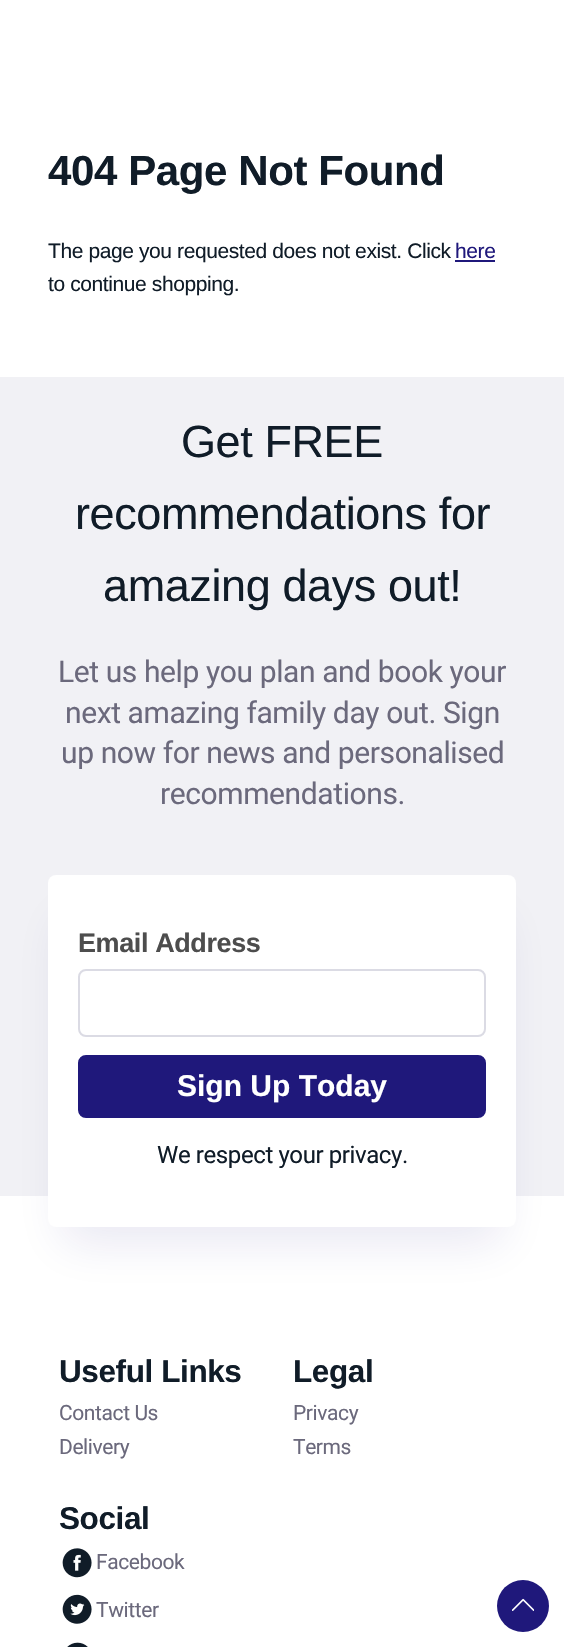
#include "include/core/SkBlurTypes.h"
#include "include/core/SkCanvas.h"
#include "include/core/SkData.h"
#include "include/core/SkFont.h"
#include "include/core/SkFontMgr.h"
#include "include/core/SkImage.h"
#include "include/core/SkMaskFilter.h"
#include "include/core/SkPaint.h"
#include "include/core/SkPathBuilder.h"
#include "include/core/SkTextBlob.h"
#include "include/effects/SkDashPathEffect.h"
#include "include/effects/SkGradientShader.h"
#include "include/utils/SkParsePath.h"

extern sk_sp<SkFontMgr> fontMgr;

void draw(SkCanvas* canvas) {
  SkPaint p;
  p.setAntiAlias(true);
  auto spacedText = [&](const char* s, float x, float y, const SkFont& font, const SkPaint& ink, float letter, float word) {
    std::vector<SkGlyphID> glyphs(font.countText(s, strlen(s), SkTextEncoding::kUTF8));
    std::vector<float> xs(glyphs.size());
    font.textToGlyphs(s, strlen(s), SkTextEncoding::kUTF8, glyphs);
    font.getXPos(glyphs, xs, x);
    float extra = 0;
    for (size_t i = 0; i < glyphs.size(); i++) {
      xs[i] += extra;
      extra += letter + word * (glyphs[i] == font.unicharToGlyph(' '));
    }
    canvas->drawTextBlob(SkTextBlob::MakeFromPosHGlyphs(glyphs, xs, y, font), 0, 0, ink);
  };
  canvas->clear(SK_ColorWHITE);
  p.setColor(SkColorSetRGB(31, 24, 123));
  canvas->drawRect(SkRect::MakeLTRB(455, 260, 495, 262), p);
  p.setColor(SkColorSetRGB(241, 241, 245));
  canvas->drawRect(SkRect::MakeLTRB(0, 377, 564, 1196), p);
  p.setColor(SkColorSetARGB(26, 31, 24, 123));
  p.setMaskFilter(SkMaskFilter::MakeBlur(kNormal_SkBlurStyle, 22.5f));
  canvas->drawRect(SkRect::MakeLTRB(63, 920, 501, 1242), p);
  p.setMaskFilter(nullptr);
  p.setColor(SK_ColorWHITE);
  canvas->drawRoundRect(SkRect::MakeLTRB(48, 875, 516, 1227), 8, 8, p);
  p.setStyle(SkPaint::kStroke_Style);
  p.setStrokeWidth(2);
  p.setColor(SkColorSetRGB(219, 219, 228));
  canvas->drawRoundRect(SkRect::MakeLTRB(79, 970, 485, 1036), 7, 7, p);
  p.setStyle(SkPaint::kFill_Style);
  p.setColor(SkColorSetRGB(31, 24, 123));
  canvas->drawRoundRect(SkRect::MakeLTRB(79.5f, 1056.5f, 484.5f, 1116.5f), 6.5f, 6.5f, p);
  p.setStyle(SkPaint::kStroke_Style);
  p.setStrokeWidth(3);
  canvas->drawRoundRect(SkRect::MakeLTRB(79.5f, 1056.5f, 484.5f, 1116.5f), 6.5f, 6.5f, p);
  canvas->drawImageRect(SkImages::DeferredFromEncodedData(SkData::MakeFromFileName("images/1.png")), SkRect::MakeLTRB(62, 1548, 92, 1578), SkSamplingOptions());
  canvas->drawImageRect(SkImages::DeferredFromEncodedData(SkData::MakeFromFileName("images/2.png")), SkRect::MakeLTRB(62, 1594, 92, 1624), SkSamplingOptions());
  canvas->drawImageRect(SkImages::DeferredFromEncodedData(SkData::MakeFromFileName("images/3.png")), SkRect::MakeLTRB(67, 1642, 88, 1647), SkSamplingOptions());
  p.setStyle(SkPaint::kFill_Style);
  canvas->drawCircle(523, 1606, 26, p);
  canvas->drawImageRect(SkImages::DeferredFromEncodedData(SkData::MakeFromFileName("images/4.png")), SkRect::MakeLTRB(512, 1598, 534, 1611), SkSamplingOptions());
  SkFont font1(fontMgr->matchFamilyStyle("Liberation Sans", SkFontStyle::Bold()), 42);
  font1.setSubpixel(true);
  p.setColor(SkColorSetRGB(16, 28, 40));
  spacedText("404 Page Not Found", 48, 185, font1, p, -0.4f, 0);
  SkFont font2(fontMgr->matchFamilyStyle("Liberation Sans", SkFontStyle::Normal()), 21);
  font2.setSubpixel(true);
  spacedText("The page you requested does not exist. Click", 48, 258, font2, p, -0.4f, 0);
  p.setColor(SkColorSetRGB(31, 24, 123));
  spacedText("here", 455, 258, font2, p, -0.4f, 0);
  p.setColor(SkColorSetRGB(16, 28, 40));
  spacedText("to continue shopping.", 48, 291, font2, p, -0.4f, 0);
  SkFont font3(fontMgr->matchFamilyStyle("Liberation Sans", SkFontStyle::Normal()), 45);
  font3.setSubpixel(true);
  spacedText("Get FREE", 181, 457, font3, p, -0.4f, 0);
  spacedText("recommendations for", 75, 529, font3, p, -0.4f, 0);
  spacedText("amazing days out!", 103, 601, font3, p, -0.4f, 0);
  SkFont font4(fontMgr->matchFamilyStyle("Roboto", SkFontStyle::Normal()), 30);
  font4.setSubpixel(true);
  p.setColor(SkColorSetRGB(107, 105, 124));
  spacedText("Let us help you plan and book your", 58, 682, font4, p, -0.4f, 0);
  spacedText("next amazing family day out. Sign", 65, 723, font4, p, -0.4f, 0);
  spacedText("up now for news and personalised", 61, 763, font4, p, -0.4f, 0);
  spacedText("recommendations.", 160, 804, font4, p, -0.4f, 0);
  SkFont font5(fontMgr->matchFamilyStyle("Liberation Sans", SkFontStyle::Bold()), 27);
  font5.setSubpixel(true);
  p.setColor(SkColorSetRGB(77, 77, 77));
  spacedText("Email Address", 78, 952, font5, p, -0.4f, 0);
  SkFont font6(fontMgr->matchFamilyStyle("Liberation Sans", SkFontStyle::Bold()), 30);
  font6.setSubpixel(true);
  p.setColor(SK_ColorWHITE);
  canvas->drawString("Sign Up Today", 177, 1096, font6, p);
  SkFont font7(fontMgr->matchFamilyStyle("Roboto", SkFontStyle::Normal()), 24);
  font7.setSubpixel(true);
  p.setColor(SkColorSetRGB(16, 28, 40));
  spacedText("We respect your privacy.", 157, 1163, font7, p, -0.4f, 0);
  SkFont font8(fontMgr->matchFamilyStyle("Liberation Sans", SkFontStyle::Bold()), 31.5f);
  font8.setSubpixel(true);
  spacedText("Useful Links", 59, 1382, font8, p, -0.4f, 0);
  SkFont font9(fontMgr->matchFamilyStyle("Roboto", SkFontStyle::Normal()), 21);
  font9.setSubpixel(true);
  p.setColor(SkColorSetRGB(107, 105, 124));
  spacedText("Contact Us", 59, 1420, font9, p, -0.4f, 0);
  spacedText("Delivery", 59, 1454, font9, p, -0.4f, 0);
  p.setColor(SkColorSetRGB(16, 28, 40));
  spacedText("Legal", 293, 1382, font8, p, -0.4f, 0);
  p.setColor(SkColorSetRGB(107, 105, 124));
  spacedText("Privacy", 293, 1420, font9, p, -0.4f, 0);
  spacedText("Terms", 293, 1454, font9, p, -0.4f, 0);
  p.setColor(SkColorSetRGB(16, 28, 40));
  spacedText("Social", 59, 1529, font8, p, -0.4f, 0);
  p.setColor(SkColorSetRGB(107, 105, 124));
  spacedText("Facebook", 96, 1569, font9, p, -0.4f, 0);
  spacedText("Twitter", 96, 1617, font9, p, -0.4f, 0);
}
